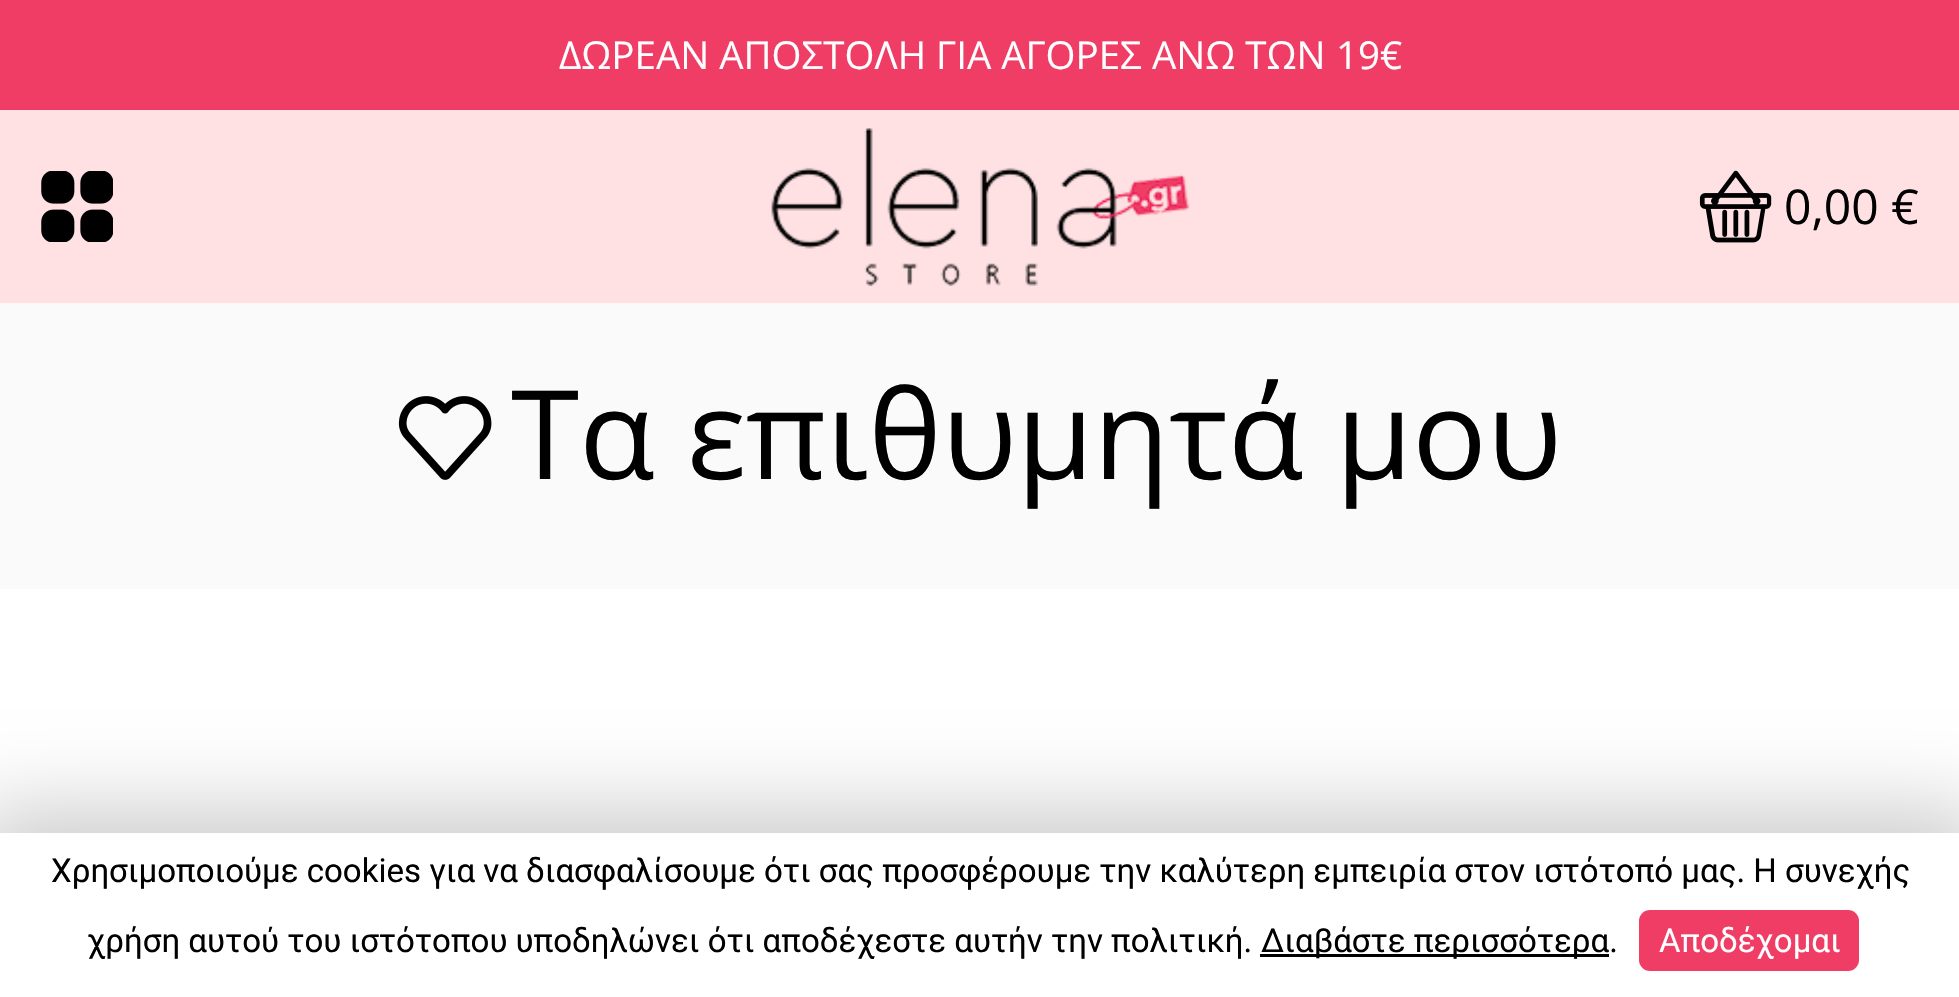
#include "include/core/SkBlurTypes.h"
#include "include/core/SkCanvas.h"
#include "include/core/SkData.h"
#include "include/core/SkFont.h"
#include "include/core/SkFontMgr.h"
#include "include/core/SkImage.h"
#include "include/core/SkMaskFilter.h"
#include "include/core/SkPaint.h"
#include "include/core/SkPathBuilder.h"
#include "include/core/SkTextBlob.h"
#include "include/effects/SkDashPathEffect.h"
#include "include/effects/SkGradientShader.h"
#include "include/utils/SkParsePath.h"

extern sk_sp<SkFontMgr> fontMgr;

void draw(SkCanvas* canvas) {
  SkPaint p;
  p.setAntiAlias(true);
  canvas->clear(SK_ColorWHITE);
  p.setColor(SkColorSetRGB(239, 61, 101));
  canvas->drawRect(SkRect::MakeLTRB(0, 0, 1959, 110), p);
  p.setColor(SkColorSetRGB(255, 225, 228));
  canvas->drawRect(SkRect::MakeLTRB(0, 110, 1959, 303), p);
  canvas->drawImageRect(SkImages::DeferredFromEncodedData(SkData::MakeFromFileName("images/1.png")), SkRect::MakeLTRB(41, 171, 113, 242), SkSamplingOptions());
  canvas->drawImageRect(SkImages::DeferredFromEncodedData(SkData::MakeFromFileName("images/2.png")), SkRect::MakeLTRB(771, 128, 1190, 286), SkSamplingOptions());
  canvas->drawImageRect(SkImages::DeferredFromEncodedData(SkData::MakeFromFileName("images/3.png")), SkRect::MakeLTRB(1699, 170, 1772, 243), SkSamplingOptions());
  p.setColor(SkColorSetRGB(250, 250, 250));
  canvas->drawRect(SkRect::MakeLTRB(0, 303, 1959, 589), p);
  canvas->drawImageRect(SkImages::DeferredFromEncodedData(SkData::MakeFromFileName("images/4.png")), SkRect::MakeLTRB(398, 396, 492, 480), SkSamplingOptions());
  p.setColor(SkColorSetARGB(51, 0, 0, 0));
  p.setMaskFilter(SkMaskFilter::MakeBlur(kNormal_SkBlurStyle, 42.5f));
  canvas->drawRect(SkRect::MakeLTRB(-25, 809, 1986, 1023), p);
  p.setMaskFilter(nullptr);
  p.setColor(SK_ColorWHITE);
  canvas->drawRect(SkRect::MakeLTRB(0, 833, 1959, 997), p);
  p.setColor(SK_ColorBLACK);
  canvas->drawRect(SkRect::MakeLTRB(1260, 954, 1609, 957), p);
  p.setColor(SkColorSetRGB(239, 61, 101));
  canvas->drawRoundRect(SkRect::MakeLTRB(1639, 910, 1859, 971), 11, 11, p);
  SkFont font1(fontMgr->matchFamilyStyle("Open Sans", SkFontStyle::Normal()), 38.5f);
  font1.setSubpixel(true);
  p.setColor(SK_ColorWHITE);
  canvas->drawString("ΔΩΡΕΑΝ ΑΠΟΣΤΟΛΗ ΓΙΑ ΑΓΟΡΕΣ ΑΝΩ ΤΩΝ", 559, 69, font1, p);
  SkFont font2(fontMgr->matchFamilyStyle("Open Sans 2", SkFontStyle::Normal()), 38.5f);
  font2.setSubpixel(true);
  canvas->drawString("19€", 1336, 69, font2, p);
  SkFont font3(fontMgr->matchFamilyStyle("Open Sans 2", SkFontStyle::Normal()), 48);
  font3.setSubpixel(true);
  p.setColor(SK_ColorBLACK);
  canvas->drawString("0,00 €", 1784, 224, font3, p);
  SkFont font4(fontMgr->matchFamilyStyle("Open Sans", SkFontStyle::Normal()), 123.75f);
  font4.setSubpixel(true);
  canvas->drawString("Τα επιθυμητά μου", 511, 479, font4, p);
  SkFont font5(fontMgr->matchFamilyStyle("Roboto", SkFontStyle::Normal()), 33);
  font5.setSubpixel(true);
  canvas->drawString("Χρησιμοποιούμε cookies για να διασφαλίσουμε ότι σας προσφέρουμε την καλύτερη εμπειρία στον ιστότοπό μας. Η συνεχής", 51, 882, font5, p);
  canvas->drawString("χρήση αυτού του ιστότοπου υποδηλώνει ότι αποδέχεστε αυτήν την πολιτική.", 87, 952, font5, p);
  canvas->drawString("Διαβάστε περισσότερα.", 1261, 952, font5, p);
  p.setColor(SK_ColorWHITE);
  canvas->drawString("Αποδέχομαι", 1659, 952, font5, p);
}
